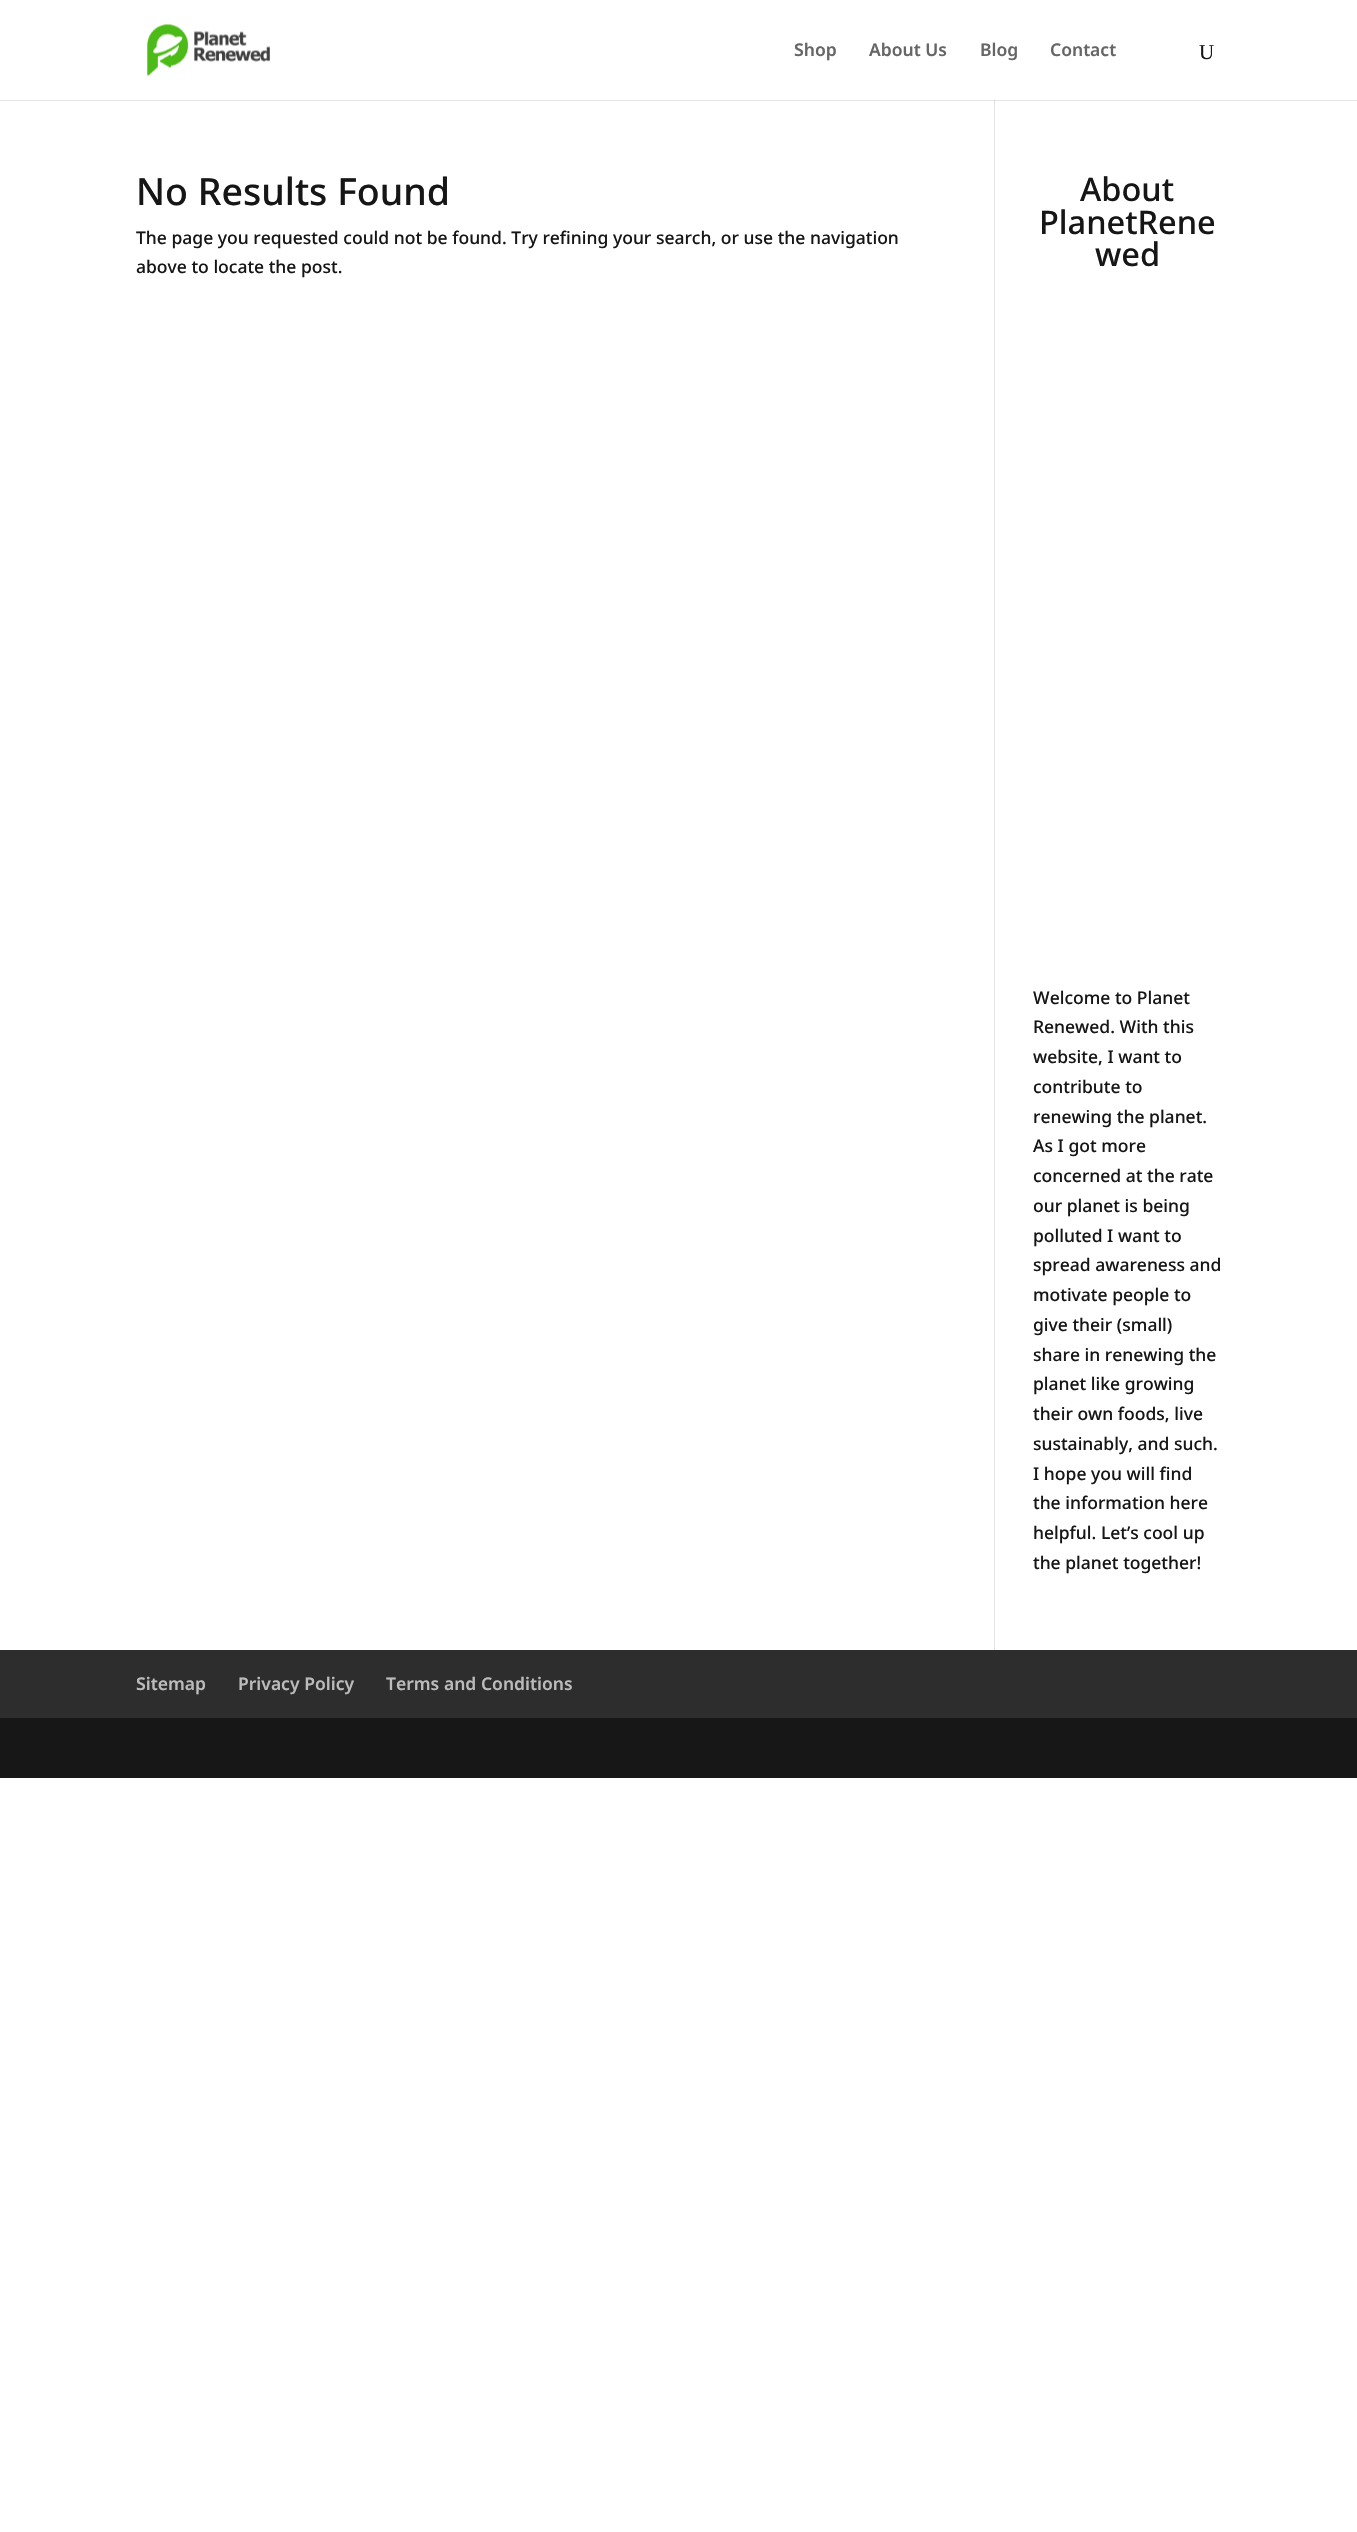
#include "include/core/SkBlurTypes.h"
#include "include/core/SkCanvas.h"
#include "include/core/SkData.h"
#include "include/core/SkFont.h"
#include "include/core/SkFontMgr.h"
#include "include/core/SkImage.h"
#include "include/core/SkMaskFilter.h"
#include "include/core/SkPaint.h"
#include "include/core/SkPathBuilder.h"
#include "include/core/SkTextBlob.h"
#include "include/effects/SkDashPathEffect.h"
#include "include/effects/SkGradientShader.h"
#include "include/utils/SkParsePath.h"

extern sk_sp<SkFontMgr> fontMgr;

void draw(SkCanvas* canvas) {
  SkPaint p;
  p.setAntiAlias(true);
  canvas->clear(SK_ColorWHITE);
  p.setColor(SkColorSetRGB(226, 226, 226));
  canvas->drawRect(SkRect::MakeLTRB(994, 100, 995, 1650), p);
  p.setColor(SkColorSetARGB(26, 0, 0, 0));
  canvas->drawPath(SkPathBuilder().moveTo(0, 100).lineTo(0, 101).lineTo(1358, 101).lineTo(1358, 1).lineTo(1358, 100).close().detach(), p);
  canvas->drawImageRect(SkImages::DeferredFromEncodedData(SkData::MakeFromFileName("images/1.png")), SkRect::MakeLTRB(147, 23, 270, 76), SkSamplingOptions());
  p.setColor(SkColorSetRGB(45, 45, 45));
  canvas->drawRect(SkRect::MakeLTRB(0, 1650, 1357, 1718), p);
  p.setColor(SkColorSetRGB(23, 23, 23));
  canvas->drawRect(SkRect::MakeLTRB(0, 1718, 1357, 1778), p);
  SkFont font1(fontMgr->matchFamilyStyle("Noto Sans Cherokee", SkFontStyle(600, SkFontStyle::kNormal_Width, SkFontStyle::kUpright_Slant)), 17.5f);
  font1.setSubpixel(true);
  p.setColor(SkColorSetRGB(102, 102, 102));
  canvas->drawString("Shop", 794, 56, font1, p);
  canvas->drawString("About Us", 869, 56, font1, p);
  canvas->drawString("Blog", 980, 56, font1, p);
  canvas->drawString("Contact", 1050, 56, font1, p);
  SkFont font2(fontMgr->matchFamilyStyle("Liberation Serif", SkFontStyle::Normal()), 21);
  font2.setSubpixel(true);
  p.setColor(SkColorSetRGB(22, 22, 22));
  canvas->drawString("U", 1199, 59, font2, p);
  SkFont font3(fontMgr->matchFamilyStyle("Noto Sans Cherokee", SkFontStyle(500, SkFontStyle::kNormal_Width, SkFontStyle::kUpright_Slant)), 37.5f);
  font3.setSubpixel(true);
  canvas->drawString("No Results Found", 136, 205, font3, p);
  SkFont font4(fontMgr->matchFamilyStyle("Noto Sans Cherokee", SkFontStyle(500, SkFontStyle::kNormal_Width, SkFontStyle::kUpright_Slant)), 17.5f);
  font4.setSubpixel(true);
  canvas->drawString("The page you requested could not be found. Try refining your search, or use the navigation", 136, 244, font4, p);
  canvas->drawString("above to locate the post.", 136, 273, font4, p);
  SkFont font5(fontMgr->matchFamilyStyle("Noto Sans Cherokee", SkFontStyle(500, SkFontStyle::kNormal_Width, SkFontStyle::kUpright_Slant)), 32.5f);
  font5.setSubpixel(true);
  canvas->drawString("About", 1080, 201, font5, p);
  canvas->drawString("PlanetRene", 1039, 234, font5, p);
  canvas->drawString("wed", 1095, 266, font5, p);
  canvas->drawString("Welcome to Planet", 1033, 1004, font4, p);
  canvas->drawString("Renewed. With this", 1033, 1033, font4, p);
  canvas->drawString("website, I want to", 1033, 1063, font4, p);
  canvas->drawString("contribute to", 1033, 1093, font4, p);
  canvas->drawString("renewing the planet.", 1033, 1123, font4, p);
  canvas->drawString("As I got more", 1033, 1152, font4, p);
  canvas->drawString("concerned at the rate", 1033, 1182, font4, p);
  canvas->drawString("our planet is being", 1033, 1212, font4, p);
  canvas->drawString("polluted I want to", 1033, 1242, font4, p);
  canvas->drawString("spread awareness and", 1033, 1271, font4, p);
  canvas->drawString("motivate people to", 1033, 1301, font4, p);
  canvas->drawString("give their (small)", 1033, 1331, font4, p);
  canvas->drawString("share in renewing the", 1033, 1361, font4, p);
  canvas->drawString("planet like growing", 1033, 1390, font4, p);
  canvas->drawString("their own foods, live", 1033, 1420, font4, p);
  canvas->drawString("sustainably, and such.", 1033, 1450, font4, p);
  canvas->drawString("I hope you will find", 1033, 1480, font4, p);
  canvas->drawString("the information here", 1033, 1509, font4, p);
  canvas->drawString("helpful. Let’s cool up", 1033, 1539, font4, p);
  canvas->drawString("the planet together!", 1033, 1569, font4, p);
  p.setColor(SkColorSetRGB(187, 187, 187));
  canvas->drawString("Sitemap", 136, 1690, font1, p);
  canvas->drawString("Privacy Policy", 238, 1690, font1, p);
  canvas->drawString("Terms and Conditions", 386, 1690, font1, p);
}
